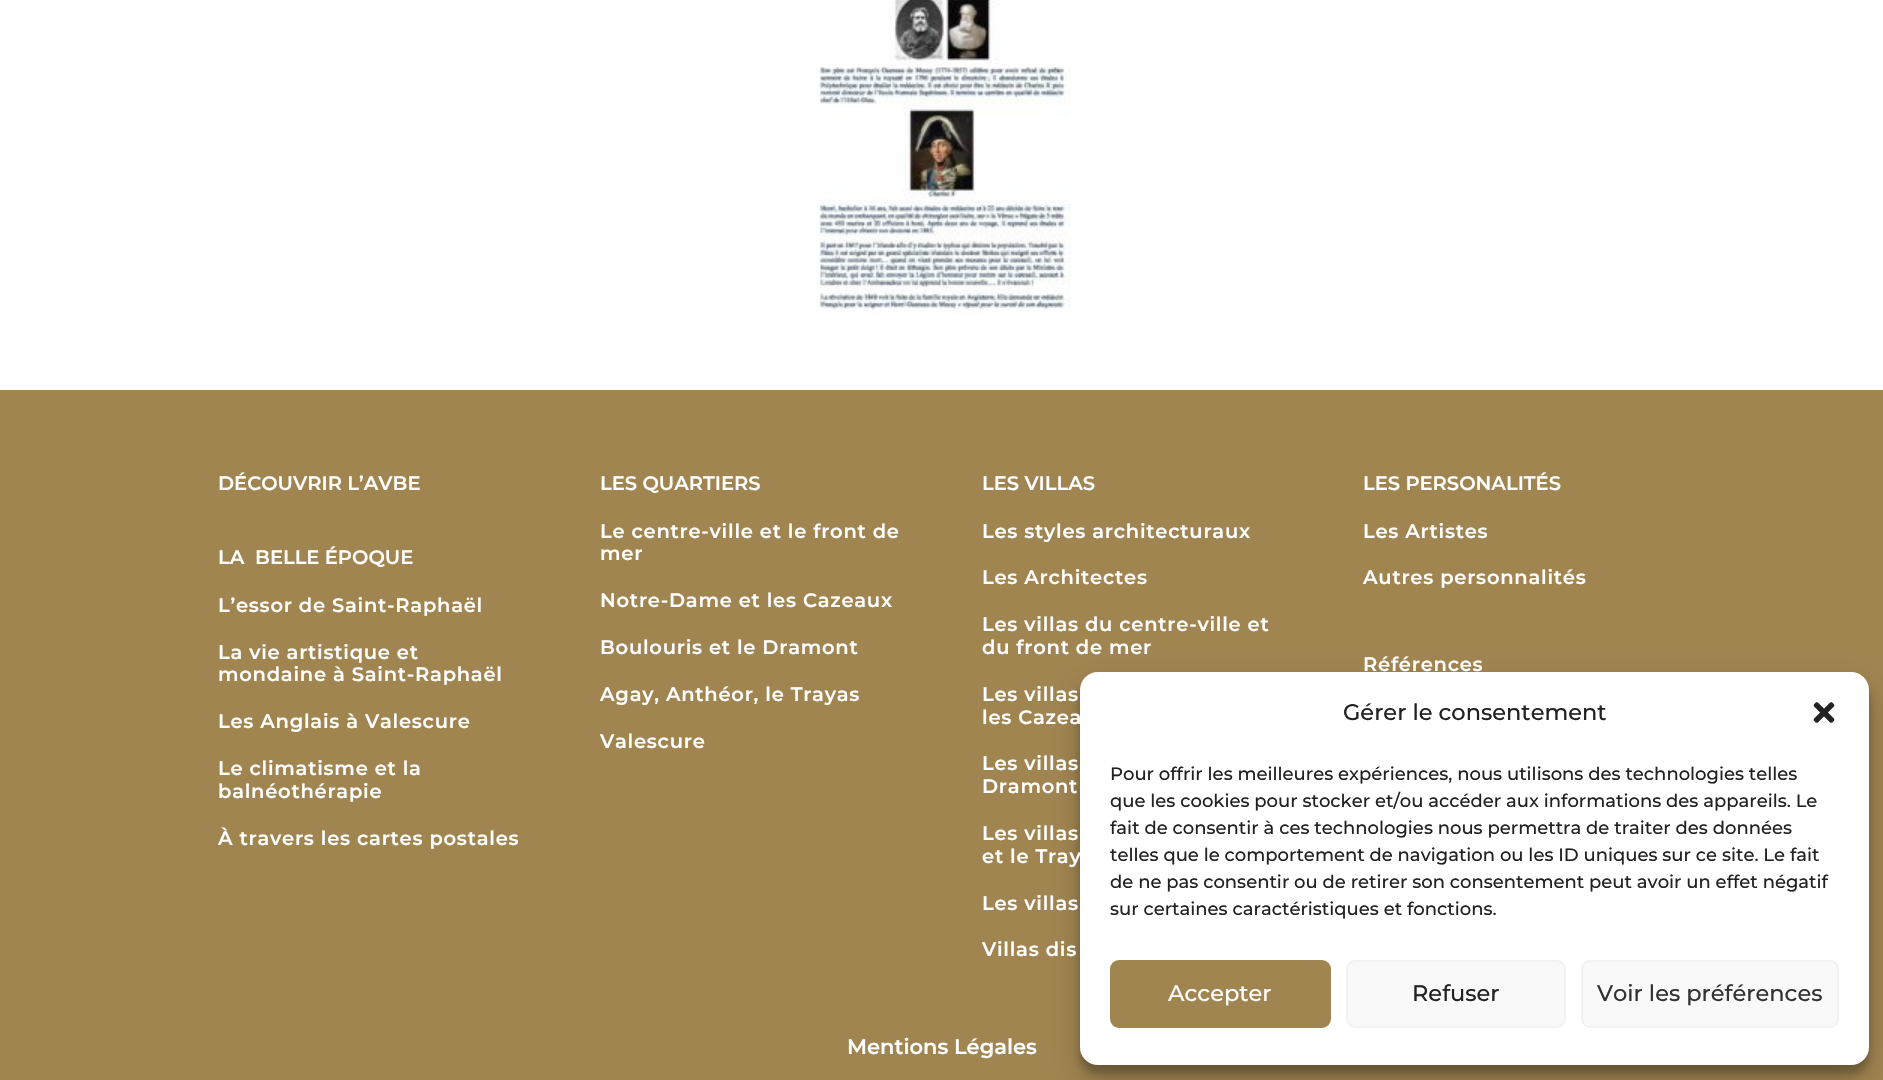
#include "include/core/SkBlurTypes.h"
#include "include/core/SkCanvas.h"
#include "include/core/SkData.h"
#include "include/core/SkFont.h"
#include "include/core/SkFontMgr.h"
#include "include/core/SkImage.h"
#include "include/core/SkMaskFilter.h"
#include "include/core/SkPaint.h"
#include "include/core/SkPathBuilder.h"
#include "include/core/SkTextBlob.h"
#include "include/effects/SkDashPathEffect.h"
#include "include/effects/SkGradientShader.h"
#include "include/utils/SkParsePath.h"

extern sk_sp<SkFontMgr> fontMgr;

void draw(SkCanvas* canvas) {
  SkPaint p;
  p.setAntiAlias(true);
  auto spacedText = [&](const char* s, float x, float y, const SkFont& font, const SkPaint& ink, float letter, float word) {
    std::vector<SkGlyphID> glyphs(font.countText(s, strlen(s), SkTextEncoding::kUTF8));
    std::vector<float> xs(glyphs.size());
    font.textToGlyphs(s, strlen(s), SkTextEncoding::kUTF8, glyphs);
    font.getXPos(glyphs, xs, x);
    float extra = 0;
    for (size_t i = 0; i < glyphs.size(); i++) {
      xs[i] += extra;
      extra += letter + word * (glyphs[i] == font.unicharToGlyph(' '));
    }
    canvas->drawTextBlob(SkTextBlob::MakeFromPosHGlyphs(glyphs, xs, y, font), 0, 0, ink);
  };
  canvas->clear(SK_ColorWHITE);
  canvas->drawImageRect(SkImages::DeferredFromEncodedData(SkData::MakeFromFileName("images/1.png")), SkRect::MakeLTRB(809, 0, 1071, 313), SkSamplingOptions());
  p.setColor(SkColorSetRGB(161, 133, 81));
  canvas->drawRect(SkRect::MakeLTRB(0, 390, 1883, 1080), p);
  p.setColor(SkColorSetARGB(59, 0, 0, 0));
  p.setMaskFilter(SkMaskFilter::MakeBlur(kNormal_SkBlurStyle, 4.5f));
  canvas->drawRoundRect(SkRect::MakeLTRB(1080, 681, 1869, 1074), 18, 18, p);
  p.setMaskFilter(nullptr);
  p.setColor(SkColorSetARGB(48, 0, 0, 0));
  p.setMaskFilter(SkMaskFilter::MakeBlur(kNormal_SkBlurStyle, 15));
  canvas->drawRoundRect(SkRect::MakeLTRB(1080, 687, 1869, 1080), 18, 18, p);
  p.setMaskFilter(nullptr);
  p.setColor(SK_ColorWHITE);
  canvas->drawRoundRect(SkRect::MakeLTRB(1080, 672, 1869, 1065), 18, 18, p);
  canvas->drawImageRect(SkImages::DeferredFromEncodedData(SkData::MakeFromFileName("images/2.png")), SkRect::MakeLTRB(1813, 702, 1835, 723), SkSamplingOptions());
  p.setColor(SkColorSetRGB(161, 133, 81));
  canvas->drawRoundRect(SkRect::MakeLTRB(1111, 961, 1330, 1027), 8, 8, p);
  p.setStyle(SkPaint::kStroke_Style);
  p.setStrokeWidth(2);
  canvas->drawRoundRect(SkRect::MakeLTRB(1111, 961, 1330, 1027), 8, 8, p);
  p.setStyle(SkPaint::kFill_Style);
  p.setColor(SkColorSetRGB(249, 249, 249));
  canvas->drawRoundRect(SkRect::MakeLTRB(1347, 961, 1565, 1027), 8, 8, p);
  p.setStyle(SkPaint::kStroke_Style);
  p.setColor(SkColorSetRGB(242, 242, 242));
  canvas->drawRoundRect(SkRect::MakeLTRB(1347, 961, 1565, 1027), 8, 8, p);
  p.setStyle(SkPaint::kFill_Style);
  p.setColor(SkColorSetRGB(249, 249, 249));
  canvas->drawRoundRect(SkRect::MakeLTRB(1582, 961, 1838, 1027), 8, 8, p);
  p.setStyle(SkPaint::kStroke_Style);
  p.setColor(SkColorSetRGB(242, 242, 242));
  canvas->drawRoundRect(SkRect::MakeLTRB(1582, 961, 1838, 1027), 8, 8, p);
  SkFont font1(fontMgr->matchFamilyStyle("Montserrat", SkFontStyle(600, SkFontStyle::kNormal_Width, SkFontStyle::kUpright_Slant)), 19.5f);
  font1.setSubpixel(true);
  p.setStyle(SkPaint::kFill_Style);
  p.setColor(SK_ColorWHITE);
  canvas->drawString("DÉCOUVRIR L’AVBE", 218, 490, font1, p);
  canvas->drawString("LA  BELLE ÉPOQUE", 218, 564, font1, p);
  spacedText("L’essor de Saint-Raphaël", 218, 612, font1, p, 0.75f, 0);
  spacedText("La vie artistique et", 218, 659, font1, p, 0.75f, 0);
  spacedText("mondaine à Saint-Raphaël", 218, 681, font1, p, 0.75f, 0);
  spacedText("Les Anglais à Valescure", 218, 728, font1, p, 0.75f, 0);
  spacedText("Le climatisme et la", 218, 775, font1, p, 0.75f, 0);
  spacedText("balnéothérapie", 218, 798, font1, p, 0.75f, 0);
  spacedText("À travers les cartes postales", 218, 845, font1, p, 0.75f, 0);
  canvas->drawString("LES QUARTIERS", 600, 490, font1, p);
  spacedText("Le centre-ville et le front de", 600, 538, font1, p, 0.75f, 0);
  spacedText("mer", 600, 560, font1, p, 0.75f, 0);
  spacedText("Notre-Dame et les Cazeaux", 600, 607, font1, p, 0.75f, 0);
  spacedText("Boulouris et le Dramont", 600, 654, font1, p, 0.75f, 0);
  spacedText("Agay, Anthéor, le Trayas", 600, 701, font1, p, 0.75f, 0);
  spacedText("Valescure", 600, 748, font1, p, 0.75f, 0);
  canvas->drawString("LES VILLAS", 982, 490, font1, p);
  spacedText("Les styles architecturaux", 982, 538, font1, p, 0.75f, 0);
  spacedText("Les Architectes", 982, 584, font1, p, 0.75f, 0);
  spacedText("Les villas du centre-ville et", 982, 631, font1, p, 0.75f, 0);
  spacedText("du front de mer", 982, 654, font1, p, 0.75f, 0);
  spacedText("Les villas", 982, 701, font1, p, 0.75f, 0);
  spacedText("les Cazea", 982, 724, font1, p, 0.75f, 0);
  spacedText("Les villas", 982, 770, font1, p, 0.75f, 0);
  spacedText("Dramont", 982, 793, font1, p, 0.75f, 0);
  spacedText("Les villas", 982, 840, font1, p, 0.75f, 0);
  spacedText("et le Tray", 982, 863, font1, p, 0.75f, 0);
  spacedText("Les villas", 982, 910, font1, p, 0.75f, 0);
  spacedText("Villas dis", 982, 956, font1, p, 0.75f, 0);
  canvas->drawString("LES PERSONALITÉS", 1363, 490, font1, p);
  spacedText("Les Artistes", 1363, 538, font1, p, 0.75f, 0);
  spacedText("Autres personnalités", 1363, 584, font1, p, 0.75f, 0);
  spacedText("Références", 1363, 671, font1, p, 0.75f, 0);
  SkFont font2(fontMgr->matchFamilyStyle("Montserrat", SkFontStyle(600, SkFontStyle::kNormal_Width, SkFontStyle::kUpright_Slant)), 21);
  font2.setSubpixel(true);
  canvas->drawString("Mentions Légales", 847, 1054, font2, p);
  SkFont font3(fontMgr->matchFamilyStyle("Montserrat", SkFontStyle(500, SkFontStyle::kNormal_Width, SkFontStyle::kUpright_Slant)), 22.5f);
  font3.setSubpixel(true);
  p.setColor(SkColorSetRGB(34, 34, 34));
  canvas->drawString("Gérer le consentement", 1343, 720, font3, p);
  SkFont font4(fontMgr->matchFamilyStyle("Montserrat", SkFontStyle(500, SkFontStyle::kNormal_Width, SkFontStyle::kUpright_Slant)), 18);
  font4.setSubpixel(true);
  canvas->drawString("Pour offrir les meilleures expériences, nous utilisons des technologies telles", 1110, 780, font4, p);
  canvas->drawString("que les cookies pour stocker et/ou accéder aux informations des appareils. Le", 1110, 807, font4, p);
  canvas->drawString("fait de consentir à ces technologies nous permettra de traiter des données", 1110, 834, font4, p);
  canvas->drawString("telles que le comportement de navigation ou les ID uniques sur ce site. Le fait", 1110, 861, font4, p);
  canvas->drawString("de ne pas consentir ou de retirer son consentement peut avoir un effet négatif", 1110, 888, font4, p);
  canvas->drawString("sur certaines caractéristiques et fonctions.", 1110, 915, font4, p);
  p.setColor(SK_ColorWHITE);
  canvas->drawString("Accepter", 1168, 1001, font3, p);
  p.setColor(SkColorSetRGB(34, 34, 34));
  canvas->drawString("Refuser", 1412, 1001, font3, p);
  p.setColor(SkColorSetRGB(51, 51, 51));
  canvas->drawString("Voir les préférences", 1597, 1001, font3, p);
}
